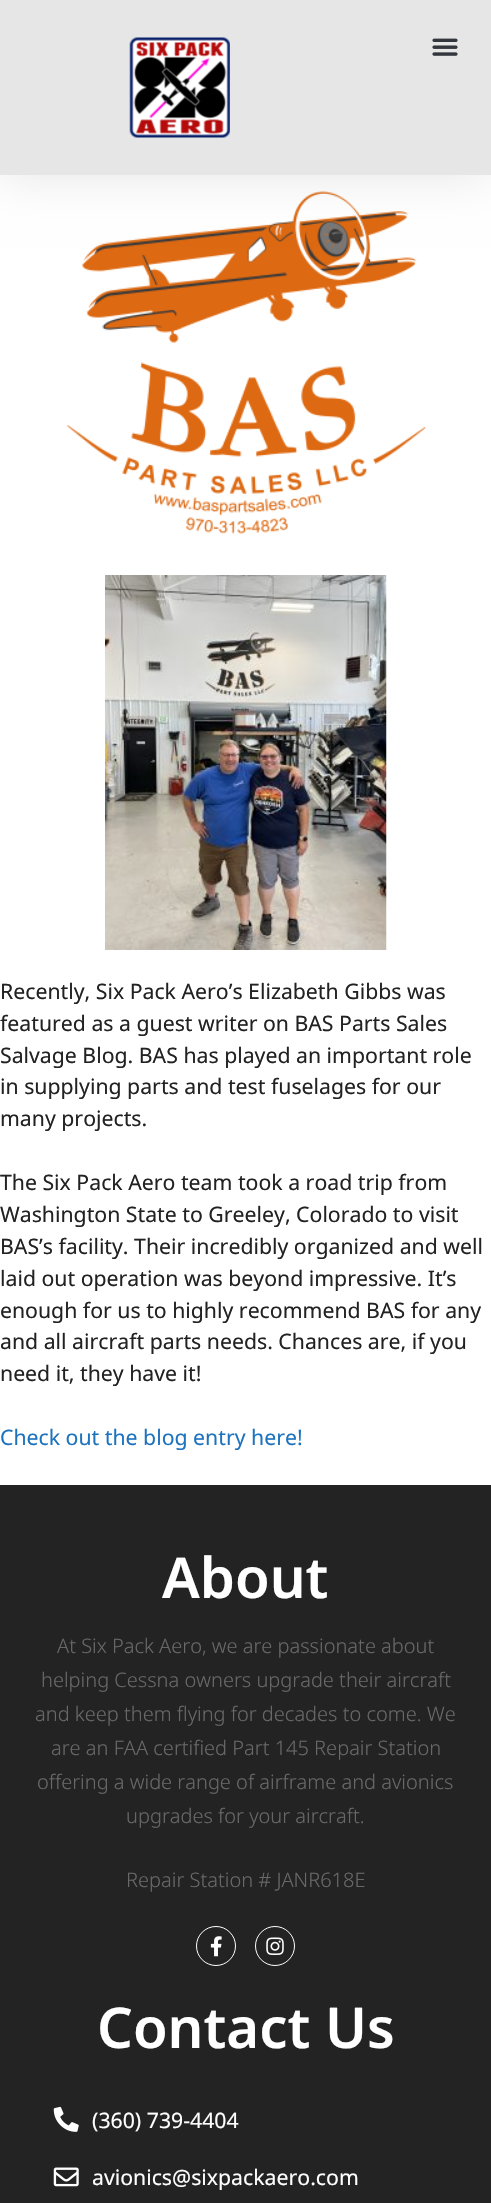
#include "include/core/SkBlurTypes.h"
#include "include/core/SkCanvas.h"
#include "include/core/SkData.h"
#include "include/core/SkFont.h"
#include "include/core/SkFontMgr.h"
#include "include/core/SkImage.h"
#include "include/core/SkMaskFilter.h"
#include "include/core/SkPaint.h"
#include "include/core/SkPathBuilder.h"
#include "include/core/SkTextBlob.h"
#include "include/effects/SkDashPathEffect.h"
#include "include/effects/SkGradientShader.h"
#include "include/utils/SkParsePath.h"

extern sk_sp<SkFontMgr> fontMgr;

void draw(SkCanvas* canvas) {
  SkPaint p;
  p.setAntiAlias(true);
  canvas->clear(SK_ColorWHITE);
  canvas->drawImageRect(SkImages::DeferredFromEncodedData(SkData::MakeFromFileName("images/3.png")), SkRect::MakeLTRB(66, 191, 426, 534), SkSamplingOptions());
  p.setColor(SkColorSetARGB(26, 0, 0, 0));
  p.setMaskFilter(SkMaskFilter::MakeBlur(kNormal_SkBlurStyle, 24));
  canvas->drawRect(SkRect::MakeLTRB(0, 0, 491, 175), p);
  p.setMaskFilter(nullptr);
  p.setColor(SkColorSetRGB(230, 230, 230));
  canvas->drawRect(SkRect::MakeLTRB(0, 0, 491, 175), p);
  canvas->drawImageRect(SkImages::DeferredFromEncodedData(SkData::MakeFromFileName("images/1.png")), SkRect::MakeLTRB(129, 37, 230, 138), SkSamplingOptions());
  canvas->drawImageRect(SkImages::DeferredFromEncodedData(SkData::MakeFromFileName("images/2.png")), SkRect::MakeLTRB(432, 38, 458, 56), SkSamplingOptions());
  canvas->drawImageRect(SkImages::DeferredFromEncodedData(SkData::MakeFromFileName("images/4.png")), SkRect::MakeLTRB(105, 575, 387, 950), SkSamplingOptions());
  p.setColor(SkColorSetRGB(35, 35, 35));
  canvas->drawRect(SkRect::MakeLTRB(0, 1485, 491, 2203), p);
  p.setStyle(SkPaint::kStroke_Style);
  p.setStrokeWidth(1);
  p.setColor(SK_ColorWHITE);
  canvas->drawCircle(216, 1946, 19.5f, p);
  canvas->drawImageRect(SkImages::DeferredFromEncodedData(SkData::MakeFromFileName("images/5.png")), SkRect::MakeLTRB(210, 1936, 222, 1957), SkSamplingOptions());
  canvas->drawCircle(275, 1946, 19.5f, p);
  canvas->drawImageRect(SkImages::DeferredFromEncodedData(SkData::MakeFromFileName("images/6.png")), SkRect::MakeLTRB(266, 1937, 284, 1955), SkSamplingOptions());
  canvas->drawImageRect(SkImages::DeferredFromEncodedData(SkData::MakeFromFileName("images/7.png")), SkRect::MakeLTRB(53, 2106, 79, 2132), SkSamplingOptions());
  canvas->drawImageRect(SkImages::DeferredFromEncodedData(SkData::MakeFromFileName("images/8.png")), SkRect::MakeLTRB(53, 2167, 79, 2187), SkSamplingOptions());
  SkFont font1(fontMgr->matchFamilyStyle("Noto Sans", SkFontStyle::Normal()), 21.25f);
  font1.setSubpixel(true);
  p.setStyle(SkPaint::kFill_Style);
  p.setColor(SkColorSetRGB(34, 34, 34));
  canvas->drawString("Recently, Six Pack Aero’s Elizabeth Gibbs was", 0, 999, font1, p);
  canvas->drawString("featured as a guest writer on BAS Parts Sales", 0, 1031, font1, p);
  canvas->drawString("Salvage Blog. BAS has played an important role", 0, 1063, font1, p);
  canvas->drawString("in supplying parts and test fuselages for our", 0, 1094, font1, p);
  canvas->drawString("many projects.", 0, 1126, font1, p);
  canvas->drawString("The Six Pack Aero team took a road trip from", 0, 1190, font1, p);
  canvas->drawString("Washington State to Greeley, Colorado to visit", 0, 1222, font1, p);
  canvas->drawString("BAS’s facility. Their incredibly organized and well", 0, 1254, font1, p);
  canvas->drawString("laid out operation was beyond impressive. It’s", 0, 1286, font1, p);
  canvas->drawString("enough for us to highly recommend BAS for any", 0, 1318, font1, p);
  canvas->drawString("and all aircraft parts needs. Chances are, if you", 0, 1349, font1, p);
  canvas->drawString("need it, they have it!", 0, 1381, font1, p);
  p.setColor(SkColorSetRGB(30, 115, 190));
  canvas->drawString("Check out the blog entry here!", 0, 1445, font1, p);
  SkFont font2(fontMgr->matchFamilyStyle("Noto Sans", SkFontStyle(600, SkFontStyle::kNormal_Width, SkFontStyle::kUpright_Slant)), 56.25f);
  font2.setSubpixel(true);
  p.setColor(SK_ColorWHITE);
  canvas->drawString("About", 162, 1598, font2, p);
  SkFont font3(fontMgr->matchFamilyStyle("Noto Sans", SkFontStyle(300, SkFontStyle::kNormal_Width, SkFontStyle::kUpright_Slant)), 20);
  font3.setSubpixel(true);
  p.setColor(SkColorSetRGB(104, 104, 104));
  canvas->drawString("At Six Pack Aero, we are passionate about", 57, 1653, font3, p);
  canvas->drawString("helping Cessna owners upgrade their aircraft", 41, 1687, font3, p);
  canvas->drawString("and keep them flying for decades to come. We", 35, 1721, font3, p);
  canvas->drawString("are an FAA certified Part 145 Repair Station", 51, 1755, font3, p);
  canvas->drawString("offering a wide range of airframe and avionics", 37, 1789, font3, p);
  canvas->drawString("upgrades for your aircraft.", 126, 1823, font3, p);
  canvas->drawString("Repair Station # JANR618E", 126, 1887, font3, p);
  p.setColor(SK_ColorWHITE);
  canvas->drawString("Contact Us", 97, 2048, font2, p);
  canvas->drawString("(360) 739-4404", 92, 2128, font1, p);
  canvas->drawString("avionics@sixpackaero.com", 92, 2185, font1, p);
}
